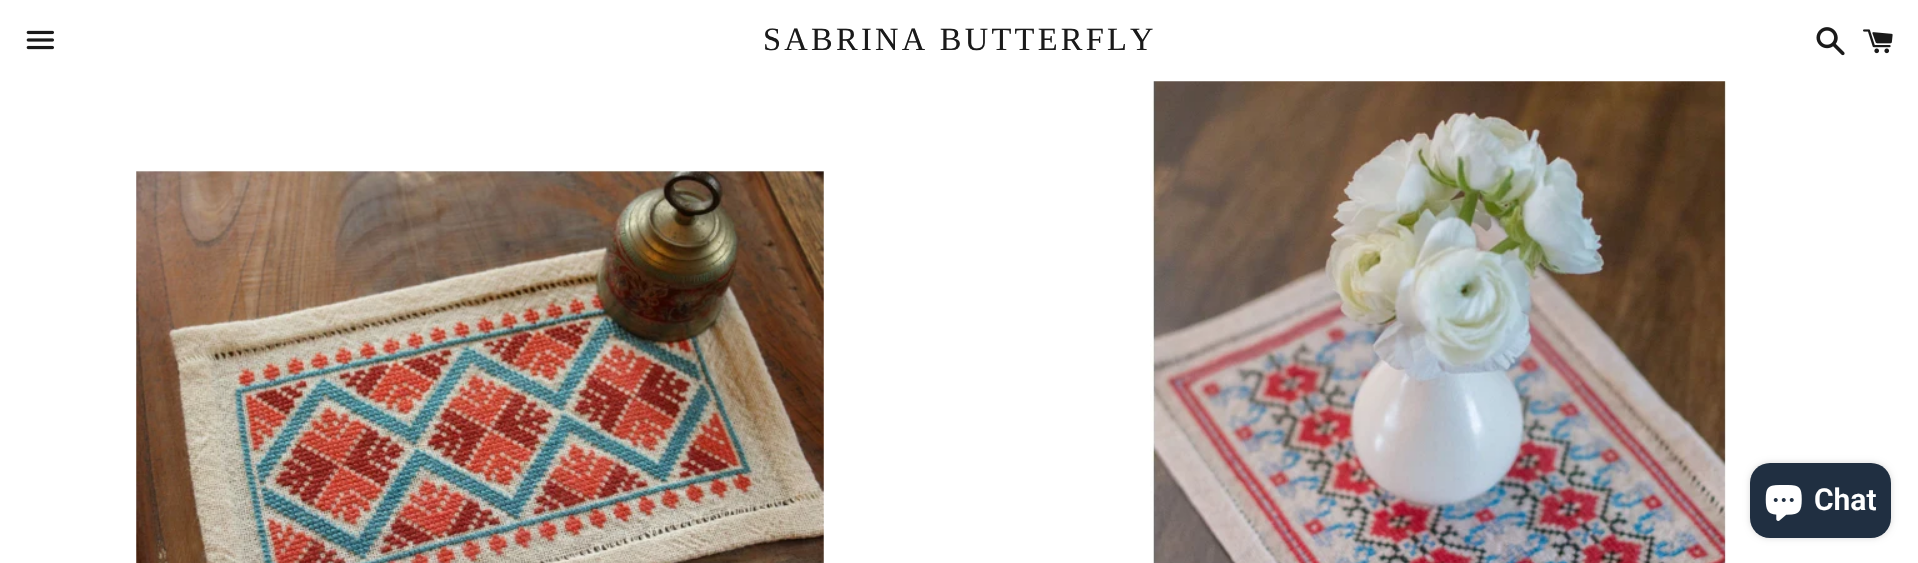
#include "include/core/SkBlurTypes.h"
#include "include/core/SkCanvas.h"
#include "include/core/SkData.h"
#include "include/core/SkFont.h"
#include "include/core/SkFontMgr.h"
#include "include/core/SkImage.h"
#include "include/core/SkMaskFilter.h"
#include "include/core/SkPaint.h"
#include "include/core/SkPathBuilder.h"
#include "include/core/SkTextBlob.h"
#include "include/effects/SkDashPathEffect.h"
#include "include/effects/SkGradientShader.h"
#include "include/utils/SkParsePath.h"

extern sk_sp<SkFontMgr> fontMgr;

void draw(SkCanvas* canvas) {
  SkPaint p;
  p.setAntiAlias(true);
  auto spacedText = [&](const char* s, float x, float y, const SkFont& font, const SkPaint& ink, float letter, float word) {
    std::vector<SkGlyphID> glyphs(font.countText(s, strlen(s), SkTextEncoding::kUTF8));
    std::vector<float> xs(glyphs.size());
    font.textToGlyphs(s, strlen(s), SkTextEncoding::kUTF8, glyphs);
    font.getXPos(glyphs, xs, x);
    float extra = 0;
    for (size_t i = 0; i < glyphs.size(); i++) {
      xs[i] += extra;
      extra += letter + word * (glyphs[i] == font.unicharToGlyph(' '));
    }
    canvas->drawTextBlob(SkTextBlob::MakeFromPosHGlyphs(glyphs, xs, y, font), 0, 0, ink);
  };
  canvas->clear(SK_ColorWHITE);
  canvas->drawImageRect(SkImages::DeferredFromEncodedData(SkData::MakeFromFileName("images/1.png")), SkRect::MakeLTRB(26, 30, 54, 50), SkSamplingOptions());
  canvas->drawImageRect(SkImages::DeferredFromEncodedData(SkData::MakeFromFileName("images/2.png")), SkRect::MakeLTRB(1816, 27, 1845, 56), SkSamplingOptions());
  canvas->drawImageRect(SkImages::DeferredFromEncodedData(SkData::MakeFromFileName("images/3.png")), SkRect::MakeLTRB(1863, 29, 1893, 54), SkSamplingOptions());
  canvas->drawImageRect(SkImages::DeferredFromEncodedData(SkData::MakeFromFileName("images/4.png")), SkRect::MakeLTRB(136, 170, 824, 563), SkSamplingOptions());
  canvas->drawImageRect(SkImages::DeferredFromEncodedData(SkData::MakeFromFileName("images/5.png")), SkRect::MakeLTRB(1150, 81, 1727, 563), SkSamplingOptions());
  p.setColor(SkColorSetARGB(38, 0, 0, 0));
  p.setMaskFilter(SkMaskFilter::MakeBlur(kNormal_SkBlurStyle, 3));
  canvas->drawRoundRect(SkRect::MakeLTRB(1750, 463, 1891, 538), 20, 20, p);
  p.setMaskFilter(nullptr);
  p.setColor(SkColorSetRGB(32, 47, 65));
  canvas->drawRoundRect(SkRect::MakeLTRB(1750, 463, 1891, 538), 20, 20, p);
  canvas->drawImageRect(SkImages::DeferredFromEncodedData(SkData::MakeFromFileName("images/6.png")), SkRect::MakeLTRB(1765, 485, 1802, 521), SkSamplingOptions());
  SkFont font1(fontMgr->matchFamilyStyle("Liberation Serif", SkFontStyle::Normal()), 32.5f);
  font1.setSubpixel(true);
  p.setColor(SkColorSetRGB(26, 26, 26));
  spacedText("SABRINA BUTTERFLY", 763, 50, font1, p, 3.25f, 0);
  SkFont font2(fontMgr->matchFamilyStyle("Roboto", SkFontStyle(600, SkFontStyle::kNormal_Width, SkFontStyle::kUpright_Slant)), 30);
  font2.setSubpixel(true);
  p.setColor(SK_ColorWHITE);
  canvas->drawString("Chat", 1814, 510, font2, p);
}
